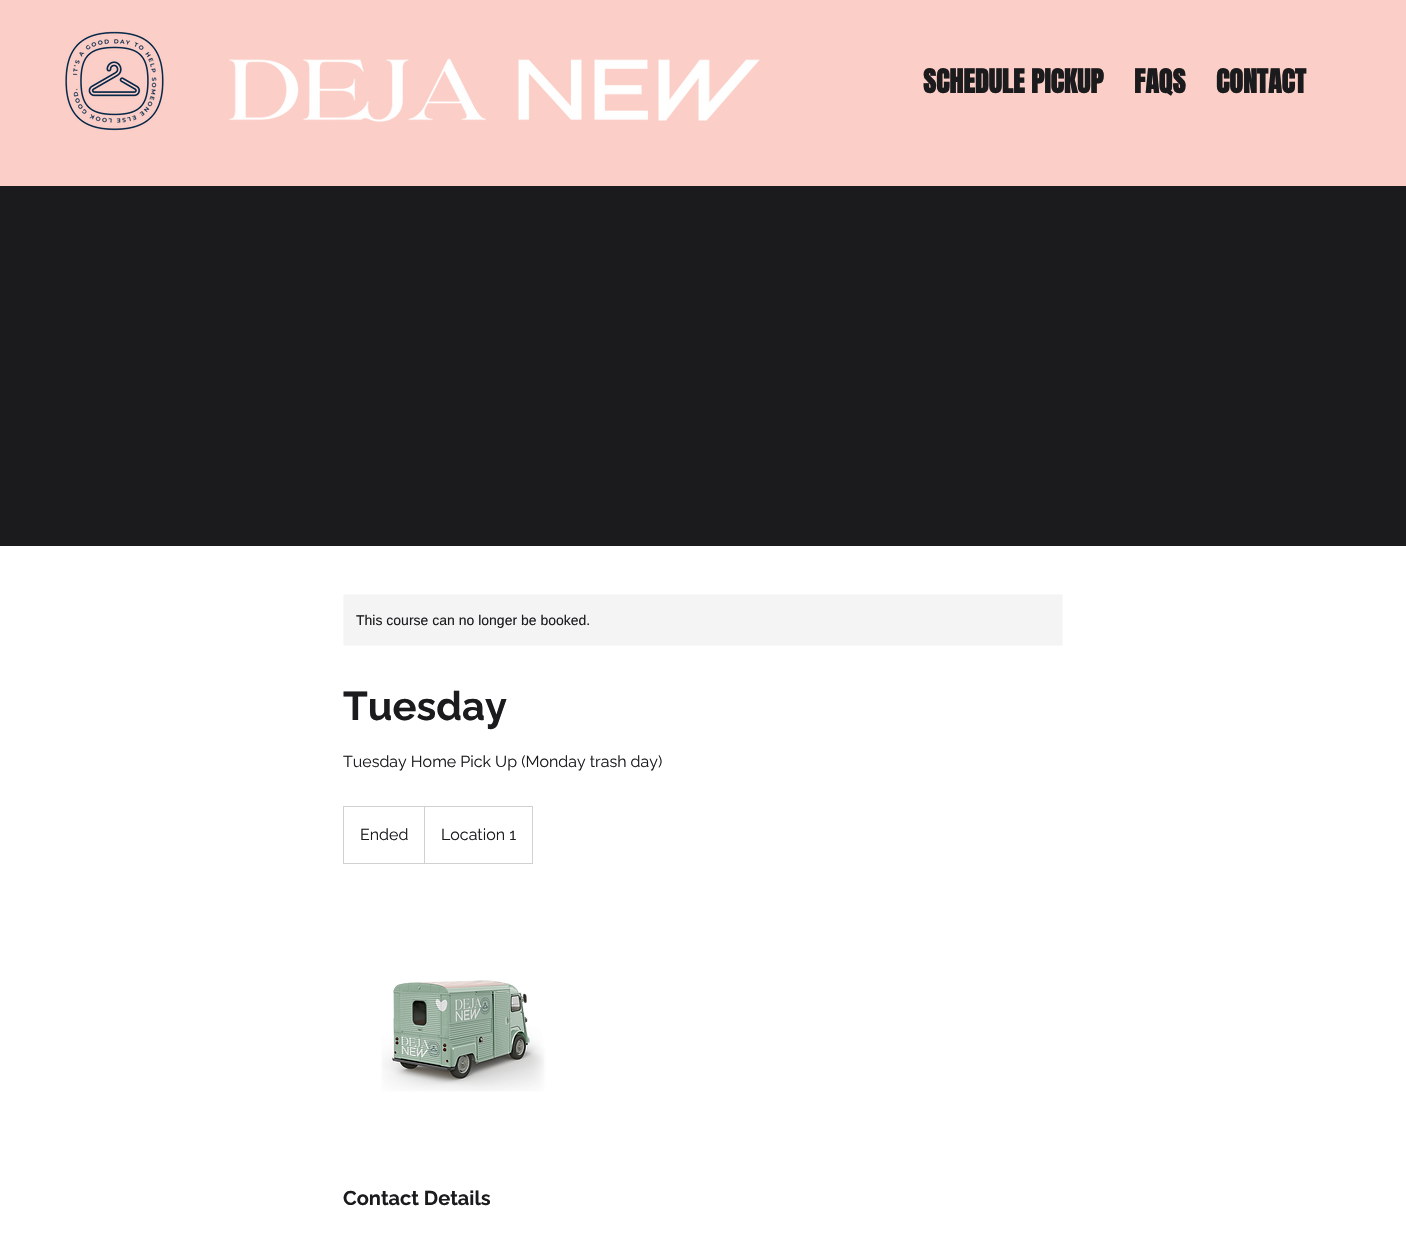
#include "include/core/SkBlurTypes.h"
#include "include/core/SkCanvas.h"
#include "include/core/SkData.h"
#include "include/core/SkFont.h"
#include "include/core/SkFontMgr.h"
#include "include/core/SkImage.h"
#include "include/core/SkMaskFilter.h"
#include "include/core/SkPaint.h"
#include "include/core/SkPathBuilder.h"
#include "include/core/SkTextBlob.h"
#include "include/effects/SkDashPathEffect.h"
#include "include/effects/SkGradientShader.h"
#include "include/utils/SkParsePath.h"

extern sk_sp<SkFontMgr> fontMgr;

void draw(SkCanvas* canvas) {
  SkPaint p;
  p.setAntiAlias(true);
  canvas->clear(SkColorSetRGB(251, 207, 199));
  canvas->drawImageRect(SkImages::DeferredFromEncodedData(SkData::MakeFromFileName("images/1.png")), SkRect::MakeLTRB(65, 31, 164, 131), SkSamplingOptions());
  canvas->drawImageRect(SkImages::DeferredFromEncodedData(SkData::MakeFromFileName("images/2.png")), SkRect::MakeLTRB(229, 58, 760, 122), SkSamplingOptions());
  p.setColor(SkColorSetRGB(27, 27, 30));
  canvas->drawRect(SkRect::MakeLTRB(0, 186, 1406, 546), p);
  p.setColor(SK_ColorWHITE);
  canvas->drawRect(SkRect::MakeLTRB(0, 546, 1406, 1256), p);
  p.setColor(SkColorSetRGB(244, 244, 244));
  canvas->drawRoundRect(SkRect::MakeLTRB(343.5f, 594.5f, 1062.5f, 645.5f), 1.5f, 1.5f, p);
  p.setStyle(SkPaint::kStroke_Style);
  p.setStrokeWidth(1);
  p.setColor(SkColorSetRGB(248, 248, 248));
  canvas->drawRoundRect(SkRect::MakeLTRB(343.5f, 594.5f, 1062.5f, 645.5f), 1.5f, 1.5f, p);
  p.setColor(SkColorSetRGB(209, 209, 210));
  canvas->drawRect(SkRect::MakeLTRB(343.5f, 806.5f, 532.5f, 863.5f), p);
  p.setStyle(SkPaint::kFill_Style);
  canvas->drawPath(SkPathBuilder().moveTo(424, 863).lineTo(424, 806).lineTo(425, 807).lineTo(425, 863).close().detach(), p);
  canvas->drawImageRect(SkImages::DeferredFromEncodedData(SkData::MakeFromFileName("images/4.png")), SkRect::MakeLTRB(382, 980, 546, 1092), SkSamplingOptions());
  canvas->drawImageRect(SkImages::DeferredFromEncodedData(SkData::MakeFromFileName("images/3.png")), SkRect::MakeLTRB(381, 980, 544, 1091), SkSamplingOptions());
  SkFont font1(fontMgr->matchFamilyStyle("Anton", SkFontStyle::Bold()), 28);
  font1.setSubpixel(true);
  p.setColor(SkColorSetRGB(27, 27, 30));
  canvas->drawString("SCHEDULE PICKUP", 923, 93, font1, p);
  canvas->drawString("FAQS", 1134, 93, font1, p);
  canvas->drawString("CONTACT", 1216, 93, font1, p);
  SkFont font2(fontMgr->matchFamilyStyle("Liberation Sans", SkFontStyle::Normal()), 14);
  font2.setSubpixel(true);
  canvas->drawString("This course can no longer be booked.", 356, 625, font2, p);
  SkFont font3(fontMgr->matchFamilyStyle("Raleway", SkFontStyle::Bold()), 40);
  font3.setSubpixel(true);
  canvas->drawString("Tuesday", 343, 720, font3, p);
  SkFont font4(fontMgr->matchFamilyStyle("Raleway", SkFontStyle::Normal()), 16);
  font4.setSubpixel(true);
  canvas->drawString("Tuesday Home Pick Up (Monday trash day)", 343, 767, font4, p);
  canvas->drawString("Ended", 360, 840, font4, p);
  canvas->drawString("Location 1", 441, 840, font4, p);
  SkFont font5(fontMgr->matchFamilyStyle("Raleway", SkFontStyle::Bold()), 20);
  font5.setSubpixel(true);
  canvas->drawString("Contact Details", 343, 1205, font5, p);
}
